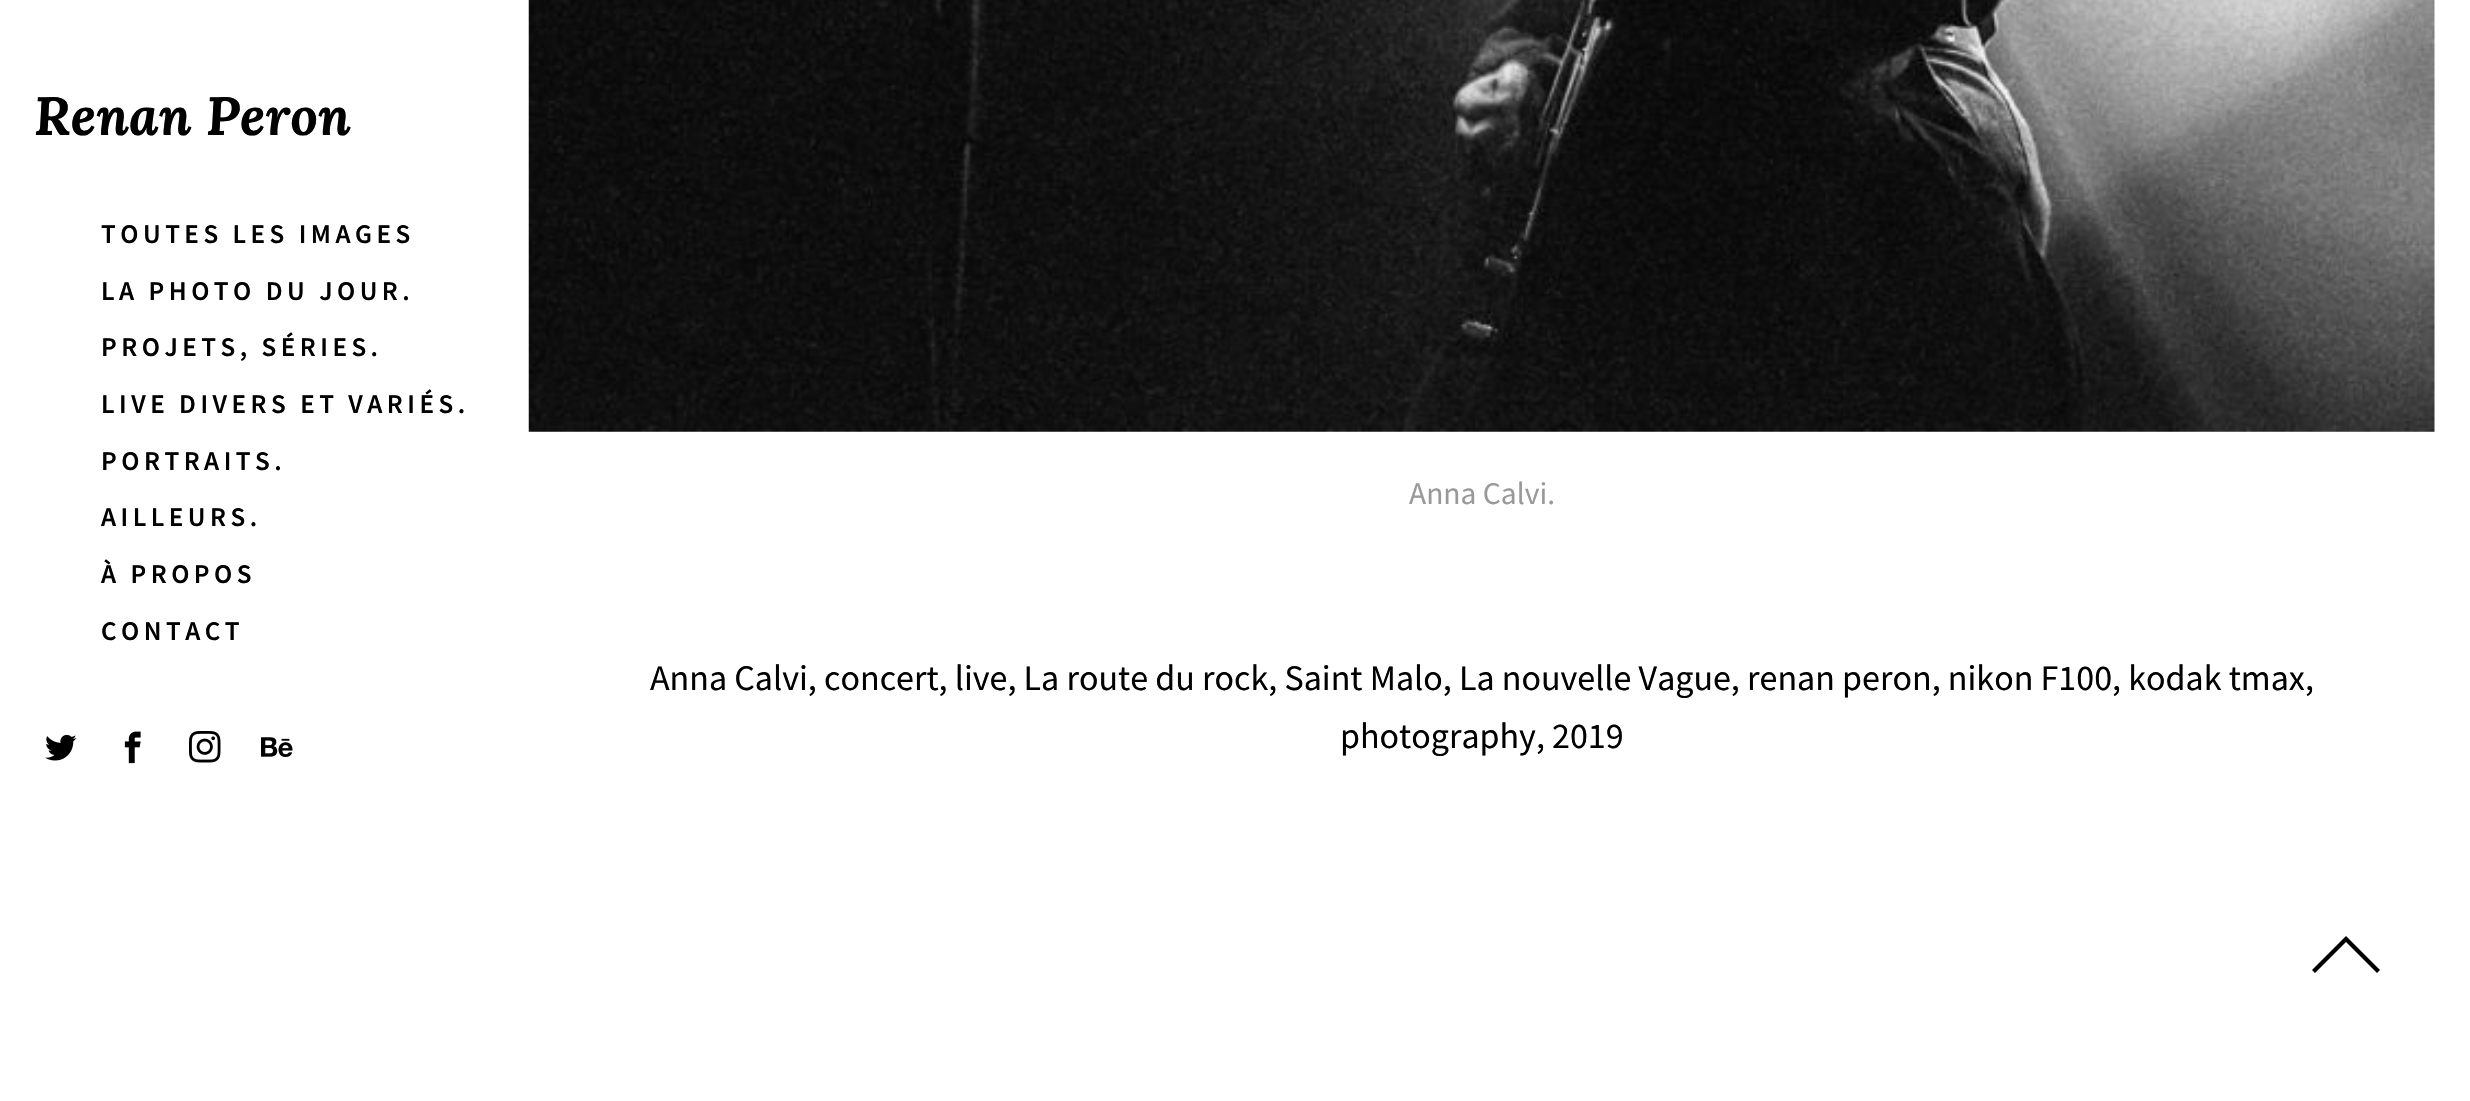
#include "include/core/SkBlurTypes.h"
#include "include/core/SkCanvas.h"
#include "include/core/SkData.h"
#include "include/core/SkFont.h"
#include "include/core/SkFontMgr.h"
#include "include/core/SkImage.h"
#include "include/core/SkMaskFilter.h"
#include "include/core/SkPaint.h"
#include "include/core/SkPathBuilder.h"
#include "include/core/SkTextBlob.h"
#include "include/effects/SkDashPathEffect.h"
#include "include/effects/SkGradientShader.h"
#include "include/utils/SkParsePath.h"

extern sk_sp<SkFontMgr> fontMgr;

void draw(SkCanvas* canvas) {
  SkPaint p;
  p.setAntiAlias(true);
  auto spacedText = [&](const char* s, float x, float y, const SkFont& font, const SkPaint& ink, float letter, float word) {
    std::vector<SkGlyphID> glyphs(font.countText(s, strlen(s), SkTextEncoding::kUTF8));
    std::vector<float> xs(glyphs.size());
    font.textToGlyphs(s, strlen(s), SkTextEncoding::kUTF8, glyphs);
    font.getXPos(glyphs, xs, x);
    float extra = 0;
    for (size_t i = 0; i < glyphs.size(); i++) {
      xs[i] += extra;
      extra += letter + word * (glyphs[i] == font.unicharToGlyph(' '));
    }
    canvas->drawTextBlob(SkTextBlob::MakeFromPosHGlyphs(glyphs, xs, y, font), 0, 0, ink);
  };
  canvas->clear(SK_ColorWHITE);
  canvas->drawImageRect(SkImages::DeferredFromEncodedData(SkData::MakeFromFileName("images/1.png")), SkRect::MakeLTRB(45, 734, 77, 761), SkSamplingOptions());
  canvas->drawImageRect(SkImages::DeferredFromEncodedData(SkData::MakeFromFileName("images/2.png")), SkRect::MakeLTRB(124, 731, 141, 764), SkSamplingOptions());
  canvas->drawImageRect(SkImages::DeferredFromEncodedData(SkData::MakeFromFileName("images/3.png")), SkRect::MakeLTRB(189, 731, 221, 763), SkSamplingOptions());
  canvas->drawImageRect(SkImages::DeferredFromEncodedData(SkData::MakeFromFileName("images/4.png")), SkRect::MakeLTRB(261, 737, 293, 757), SkSamplingOptions());
  canvas->drawImageRect(SkImages::DeferredFromEncodedData(SkData::MakeFromFileName("images/5.png")), SkRect::MakeLTRB(528, 0, 2435, 432), SkSamplingOptions());
  p.setColor(SK_ColorBLACK);
  canvas->drawPath(SkPathBuilder().moveTo(2312, 970).lineTo(2346, 936).lineTo(2380, 970).lineTo(2377, 973).lineTo(2346, 942).lineTo(2315, 973).close().detach(), p);
  SkFont font1(fontMgr->matchFamilyStyle("Lora", SkFontStyle::BoldItalic()), 54);
  font1.setSubpixel(true);
  canvas->drawString("Renan Peron", 34, 135, font1, p);
  SkFont font2(fontMgr->matchFamilyStyle("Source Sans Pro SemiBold", SkFontStyle(600, SkFontStyle::kNormal_Width, SkFontStyle::kUpright_Slant)), 27);
  font2.setSubpixel(true);
  spacedText("TOUTES LES IMAGES", 101, 243, font2, p, 4.5f, 0);
  spacedText("LA PHOTO DU JOUR.", 101, 300, font2, p, 4.5f, 0);
  spacedText("PROJETS, SÉRIES.", 101, 356, font2, p, 4.5f, 0);
  spacedText("LIVE DIVERS ET VARIÉS.", 101, 413, font2, p, 4.5f, 0);
  spacedText("PORTRAITS.", 101, 470, font2, p, 4.5f, 0);
  spacedText("AILLEURS.", 101, 526, font2, p, 4.5f, 0);
  spacedText("À PROPOS", 101, 583, font2, p, 4.5f, 0);
  spacedText("CONTACT", 101, 640, font2, p, 4.5f, 0);
  SkFont font3(fontMgr->matchFamilyStyle("Source Sans Pro", SkFontStyle::Normal()), 31.5f);
  font3.setSubpixel(true);
  p.setColor(SkColorSetRGB(153, 153, 153));
  canvas->drawString("Anna Calvi.", 1409, 504, font3, p);
  SkFont font4(fontMgr->matchFamilyStyle("Source Sans Pro", SkFontStyle::Normal()), 36);
  font4.setSubpixel(true);
  p.setColor(SK_ColorBLACK);
  canvas->drawString("Anna Calvi, concert, live, La route du rock, Saint Malo, La nouvelle Vague, renan peron, nikon F100, kodak tmax,", 650, 690, font4, p);
  canvas->drawString("photography, 2019", 1340, 748, font4, p);
}
